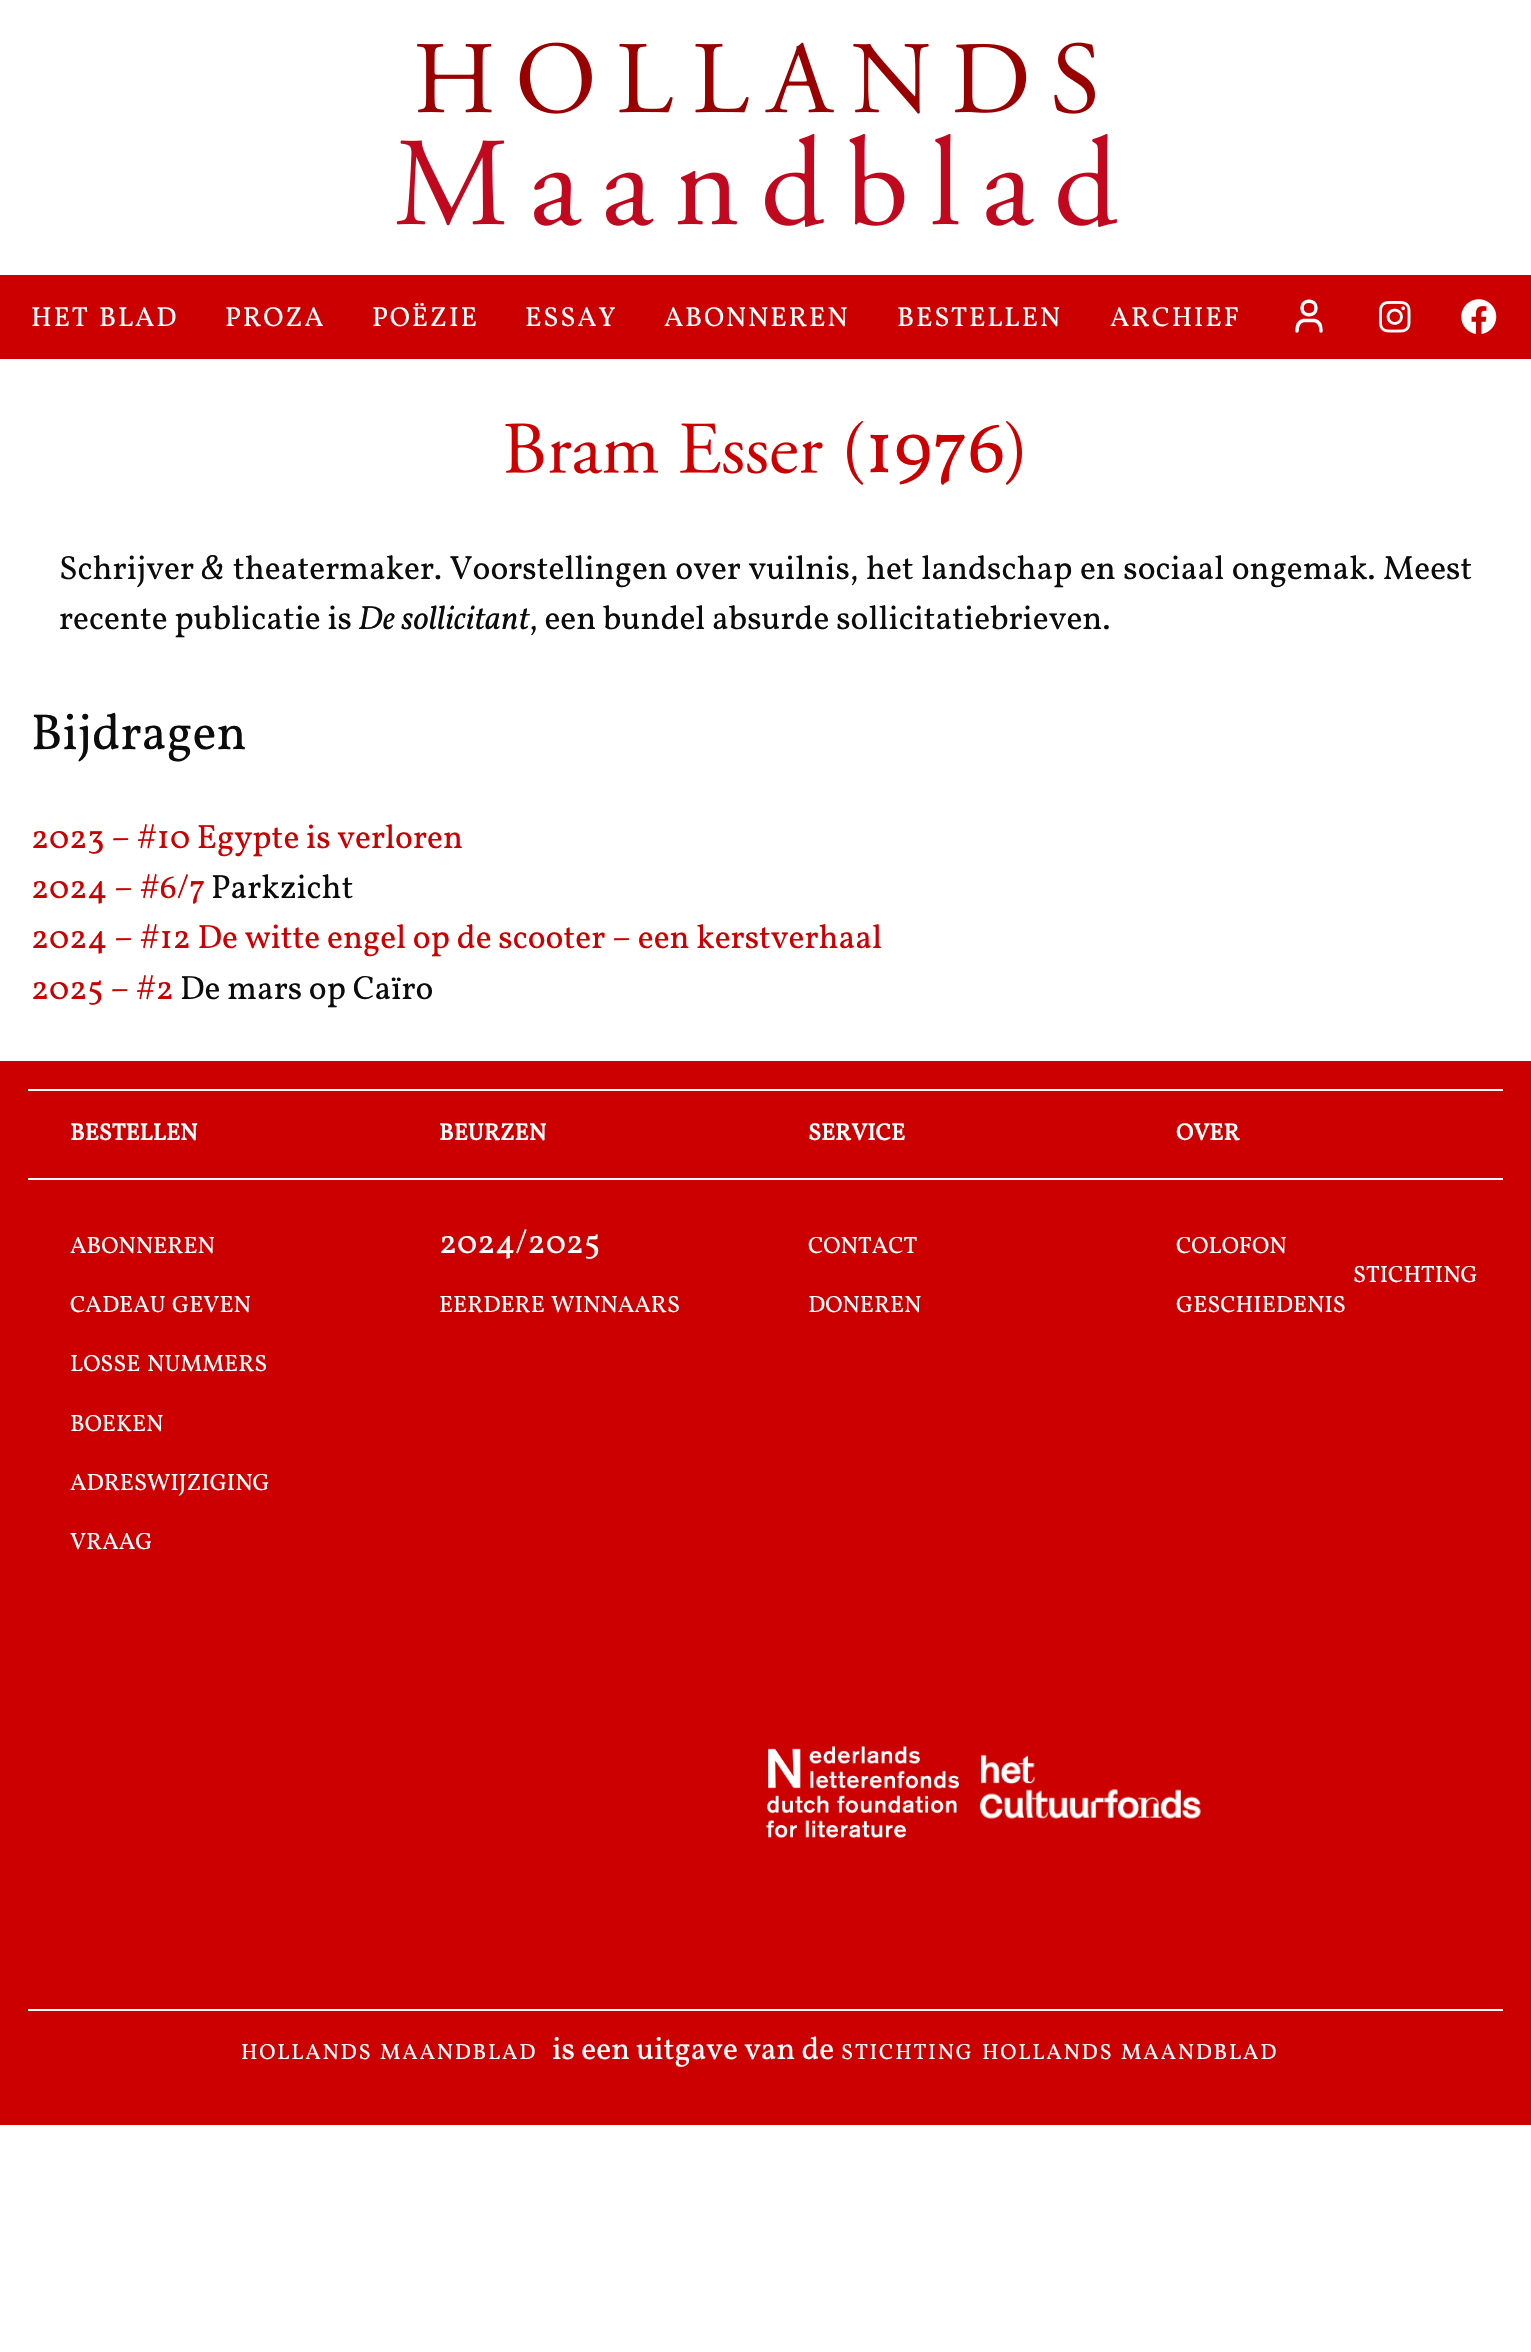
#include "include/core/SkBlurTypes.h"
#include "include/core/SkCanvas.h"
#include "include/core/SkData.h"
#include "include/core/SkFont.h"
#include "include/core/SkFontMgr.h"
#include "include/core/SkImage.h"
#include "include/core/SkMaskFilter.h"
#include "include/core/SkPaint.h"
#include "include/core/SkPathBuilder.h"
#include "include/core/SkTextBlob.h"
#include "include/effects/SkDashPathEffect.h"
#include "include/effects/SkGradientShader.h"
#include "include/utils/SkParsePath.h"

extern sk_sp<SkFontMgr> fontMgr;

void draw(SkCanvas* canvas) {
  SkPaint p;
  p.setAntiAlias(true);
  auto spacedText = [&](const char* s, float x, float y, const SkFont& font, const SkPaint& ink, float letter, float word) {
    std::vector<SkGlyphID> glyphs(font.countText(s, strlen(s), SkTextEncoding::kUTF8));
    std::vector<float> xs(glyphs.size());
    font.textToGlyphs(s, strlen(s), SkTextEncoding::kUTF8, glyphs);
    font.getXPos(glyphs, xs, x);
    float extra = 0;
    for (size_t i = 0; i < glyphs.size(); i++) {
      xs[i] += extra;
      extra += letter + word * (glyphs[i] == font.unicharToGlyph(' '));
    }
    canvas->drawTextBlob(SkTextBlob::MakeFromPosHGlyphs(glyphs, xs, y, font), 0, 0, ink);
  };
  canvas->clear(SK_ColorWHITE);
  canvas->drawImageRect(SkImages::DeferredFromEncodedData(SkData::MakeFromFileName("images/1.png")), SkRect::MakeLTRB(417, 42, 1095, 114), SkSamplingOptions());
  canvas->drawImageRect(SkImages::DeferredFromEncodedData(SkData::MakeFromFileName("images/2.png")), SkRect::MakeLTRB(396, 133, 1117, 227), SkSamplingOptions());
  p.setColor(SkColorSetRGB(204, 0, 0));
  canvas->drawRect(SkRect::MakeLTRB(0, 275, 1531, 359), p);
  p.setStyle(SkPaint::kStroke_Style);
  p.setStrokeWidth(3.5f);
  p.setStrokeCap(SkPaint::kRound_Cap);
  p.setStrokeJoin(SkPaint::kRound_Join);
  p.setColor(SK_ColorWHITE);
  canvas->drawPath(SkPathBuilder().moveTo(1297, 331).cubicTo(1297, 326, 1298.5f, 321.5f, 1303.5f, 320.5f).lineTo(1314.5f, 320.5f).cubicTo(1319.5f, 321.5f, 1321, 326, 1321, 331).moveTo(1316, 308).cubicTo(1316, 317, 1302, 317, 1302, 308).cubicTo(1302, 299, 1316, 299, 1316, 308).close().detach(), p);
  canvas->drawImageRect(SkImages::DeferredFromEncodedData(SkData::MakeFromFileName("images/3.png")), SkRect::MakeLTRB(1379, 301, 1411, 333), SkSamplingOptions());
  canvas->drawImageRect(SkImages::DeferredFromEncodedData(SkData::MakeFromFileName("images/4.png")), SkRect::MakeLTRB(1461, 299, 1497, 334), SkSamplingOptions());
  canvas->drawImageRect(SkImages::DeferredFromEncodedData(SkData::MakeFromFileName("images/5.png")), SkRect::MakeLTRB(505, 423, 823, 474), SkSamplingOptions());
  p.setStyle(SkPaint::kFill_Style);
  p.setColor(SkColorSetRGB(204, 0, 0));
  canvas->drawPath(SkPathBuilder().moveTo(852, 453).cubicTo(852, 439, 856, 429, 863, 422).cubicTo(863, 421, 863, 421, 862, 421).cubicTo(842, 434, 842, 471, 862, 485).cubicTo(863, 484, 863, 484, 863, 483).cubicTo(856, 476, 852, 466, 852, 453).close().detach(), p);
  canvas->drawPath(SkPathBuilder().moveTo(1017, 453).cubicTo(1017, 466, 1013, 476, 1006, 483).cubicTo(1006, 484, 1006, 484, 1007, 485).cubicTo(1027, 471, 1027, 434, 1007, 421).cubicTo(1006, 421, 1006, 421, 1006, 422).cubicTo(1013, 429, 1017, 439, 1017, 453).close().detach(), p);
  canvas->drawRect(SkRect::MakeLTRB(0, 1061, 1531, 2125), p);
  p.setColor(SK_ColorWHITE);
  canvas->drawRect(SkRect::MakeLTRB(28, 1089, 1503, 1091), p);
  canvas->drawRect(SkRect::MakeLTRB(28, 1178, 1503, 1180), p);
  canvas->drawImageRect(SkImages::DeferredFromEncodedData(SkData::MakeFromFileName("images/6.png")), SkRect::MakeLTRB(766, 1746, 959, 1838), SkSamplingOptions());
  canvas->drawImageRect(SkImages::DeferredFromEncodedData(SkData::MakeFromFileName("images/7.png")), SkRect::MakeLTRB(979, 1754, 1201, 1819), SkSamplingOptions());
  canvas->drawRect(SkRect::MakeLTRB(28, 2009, 1503, 2011), p);
  SkFont font1(fontMgr->matchFamilyStyle("Vollkorn", SkFontStyle::Normal()), 27.5f);
  font1.setSubpixel(true);
  spacedText("HET", 31, 326, font1, p, 1.75f, 0);
  spacedText("BLAD", 99, 326, font1, p, 1.75f, 0);
  spacedText("PROZA", 225, 326, font1, p, 1.75f, 0);
  spacedText("POËZIE", 372, 326, font1, p, 1.75f, 0);
  spacedText("ESSAY", 525, 326, font1, p, 1.75f, 0);
  spacedText("ABONNEREN", 664, 326, font1, p, 1.75f, 0);
  spacedText("BESTELLEN", 897, 326, font1, p, 1.75f, 0);
  spacedText("ARCHIEF", 1110, 326, font1, p, 1.75f, 0);
  SkFont font2(fontMgr->matchFamilyStyle("Vollkorn", SkFontStyle::Normal()), 74);
  font2.setSubpixel(true);
  p.setColor(SkColorSetRGB(204, 0, 0));
  canvas->drawString("1976", 865, 472, font2, p);
  SkFont font3(fontMgr->matchFamilyStyle("Vollkorn", SkFontStyle::Normal()), 33.6f);
  font3.setSubpixel(true);
  p.setColor(SkColorSetRGB(12, 12, 12));
  canvas->drawString("Schrijver", 59, 579, font3, p);
  SkFont font4(fontMgr->matchFamilyStyle("Vollkorn", SkFontStyle::Italic()), 33.6f);
  font4.setSubpixel(true);
  canvas->drawString("&", 201, 579, font4, p);
  spacedText("theatermaker. Voorstellingen over vuilnis, het landschap en sociaal ongemak. Meest", 233, 579, font3, p, 0, 0.75f);
  canvas->drawString("recente publicatie is", 59, 629, font3, p);
  canvas->drawString("De sollicitant", 358, 629, font4, p);
  canvas->drawString(", een bundel absurde sollicitatiebrieven.", 529, 629, font3, p);
  SkFont font5(fontMgr->matchFamilyStyle("Vollkorn", SkFontStyle::Normal()), 50.5f);
  font5.setSubpixel(true);
  canvas->drawString("Bijdragen", 31, 749, font5, p);
  p.setColor(SkColorSetRGB(204, 0, 0));
  canvas->drawString("2023 – #10 Egypte is verloren", 31, 848, font3, p);
  canvas->drawString("2024 – #6/7", 31, 898, font3, p);
  p.setColor(SkColorSetRGB(12, 12, 12));
  canvas->drawString("Parkzicht", 211, 898, font3, p);
  p.setColor(SkColorSetRGB(204, 0, 0));
  canvas->drawString("2024 – #12 De witte engel op de scooter – een kerstverhaal", 31, 948, font3, p);
  canvas->drawString("2025 – #2", 31, 999, font3, p);
  p.setColor(SkColorSetRGB(12, 12, 12));
  canvas->drawString("De mars op Caïro", 180, 999, font3, p);
  SkFont font6(fontMgr->matchFamilyStyle("Vollkorn", SkFontStyle::Bold()), 23.5f);
  font6.setSubpixel(true);
  p.setColor(SK_ColorWHITE);
  canvas->drawString("BESTELLEN", 70, 1140, font6, p);
  SkFont font7(fontMgr->matchFamilyStyle("Vollkorn", SkFontStyle::Normal()), 23.5f);
  font7.setSubpixel(true);
  canvas->drawString("ABONNEREN", 70, 1253, font7, p);
  canvas->drawString("CADEAU", 70, 1312, font7, p);
  canvas->drawString("GEVEN", 172, 1312, font7, p);
  canvas->drawString("LOSSE", 70, 1371, font7, p);
  canvas->drawString("NUMMERS", 147, 1371, font7, p);
  canvas->drawString("BOEKEN", 70, 1431, font7, p);
  canvas->drawString("ADRESWIJZIGING", 70, 1490, font7, p);
  canvas->drawString("VRAAG", 70, 1549, font7, p);
  canvas->drawString("BEURZEN", 439, 1140, font6, p);
  canvas->drawString("2024/2025", 439, 1253, font3, p);
  canvas->drawString("EERDERE", 439, 1312, font7, p);
  canvas->drawString("WINNAARS", 551, 1312, font7, p);
  canvas->drawString("SERVICE", 808, 1140, font6, p);
  canvas->drawString("CONTACT", 808, 1253, font7, p);
  canvas->drawString("DONEREN", 808, 1312, font7, p);
  canvas->drawString("OVER", 1176, 1140, font6, p);
  canvas->drawString("COLOFON", 1176, 1253, font7, p);
  canvas->drawString("GESCHIEDENIS", 1176, 1312, font7, p);
  canvas->drawString("STICHTING", 1353, 1282, font7, p);
  SkFont font8(fontMgr->matchFamilyStyle("Vollkorn", SkFontStyle::Normal()), 22);
  font8.setSubpixel(true);
  spacedText("HOLLANDS", 241, 2059, font8, p, 1.75f, 0);
  spacedText("MAANDBLAD", 380, 2059, font8, p, 1.75f, 0);
  SkFont font9(fontMgr->matchFamilyStyle("Vollkorn", SkFontStyle::Normal()), 31.5f);
  font9.setSubpixel(true);
  canvas->drawString("is een uitgave van de", 552, 2059, font9, p);
  spacedText("STICHTING", 841, 2059, font8, p, 1.75f, 0);
  spacedText("HOLLANDS", 982, 2059, font8, p, 1.75f, 0);
  spacedText("MAANDBLAD", 1121, 2059, font8, p, 1.75f, 0);
}
